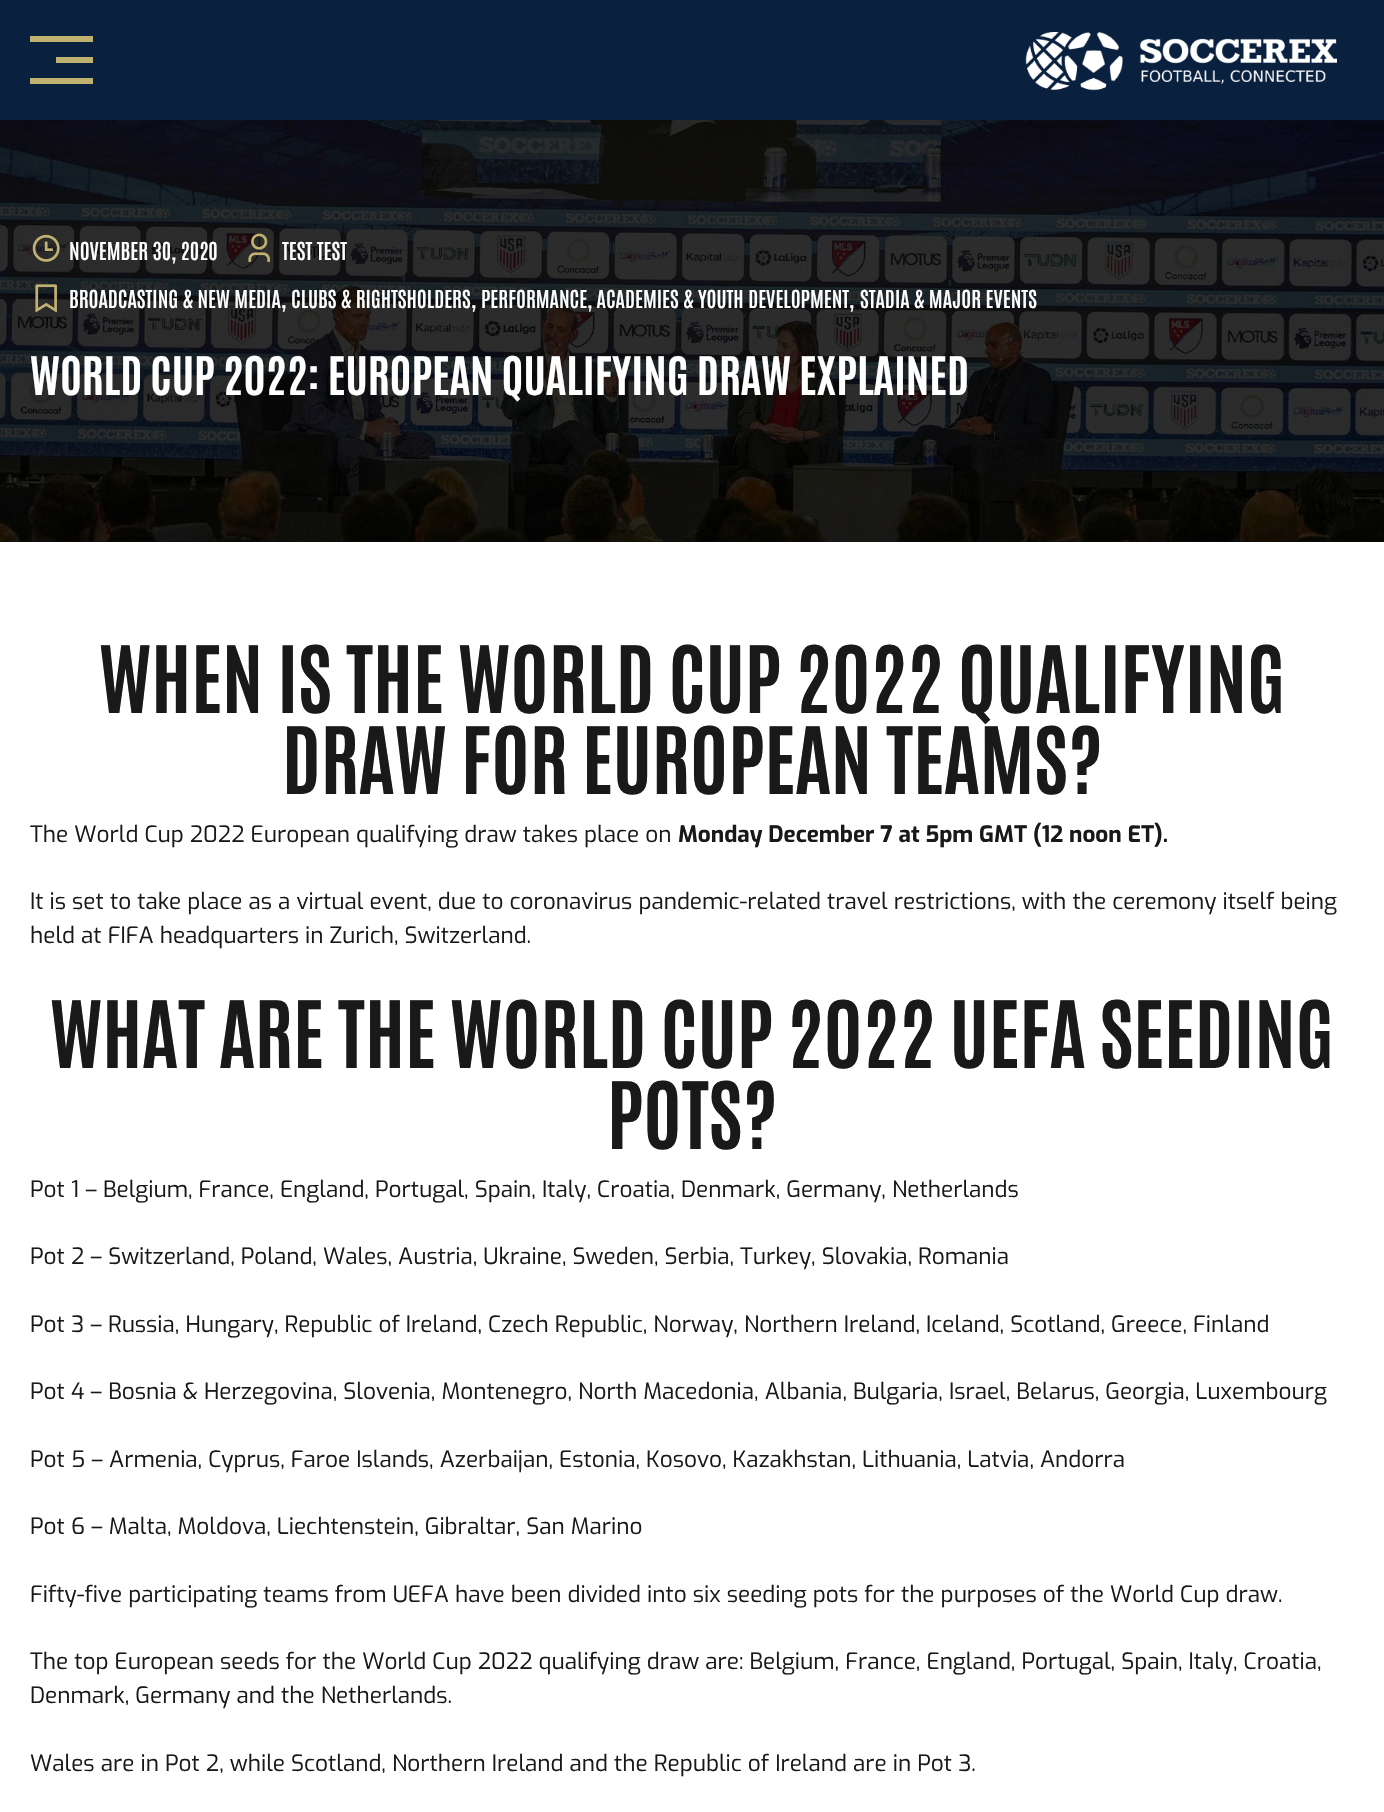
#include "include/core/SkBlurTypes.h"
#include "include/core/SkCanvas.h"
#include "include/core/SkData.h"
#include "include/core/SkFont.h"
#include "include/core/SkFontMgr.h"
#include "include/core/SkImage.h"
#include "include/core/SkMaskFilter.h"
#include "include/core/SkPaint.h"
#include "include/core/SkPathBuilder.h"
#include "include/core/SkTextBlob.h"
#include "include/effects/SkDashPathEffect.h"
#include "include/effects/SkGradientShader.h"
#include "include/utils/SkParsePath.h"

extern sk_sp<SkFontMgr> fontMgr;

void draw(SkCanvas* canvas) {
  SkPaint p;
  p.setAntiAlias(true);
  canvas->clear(SK_ColorWHITE);
  p.setColor(SkColorSetRGB(9, 32, 62));
  canvas->drawRect(SkRect::MakeLTRB(0, 0, 1384, 120), p);
  p.setColor(SkColorSetRGB(191, 177, 112));
  canvas->drawRect(SkRect::MakeLTRB(30, 36, 93, 42), p);
  canvas->drawRect(SkRect::MakeLTRB(56, 57, 93, 63), p);
  canvas->drawRect(SkRect::MakeLTRB(30, 78, 93, 84), p);
  canvas->drawImageRect(SkImages::DeferredFromEncodedData(SkData::MakeFromFileName("images/1.png")), SkRect::MakeLTRB(1025, 32, 1337, 91), SkSamplingOptions());
  p.setColor(SkColorSetRGB(15, 15, 15));
  canvas->drawRect(SkRect::MakeLTRB(0, 541, 1384, 542), p);
  canvas->drawImageRect(SkImages::DeferredFromEncodedData(SkData::MakeFromFileName("images/2.png")), SkRect::MakeLTRB(0, 120, 1384, 542), SkSamplingOptions());
  canvas->drawImageRect(SkImages::DeferredFromEncodedData(SkData::MakeFromFileName("images/3.png")), SkRect::MakeLTRB(32, 234, 60, 262), SkSamplingOptions());
  canvas->drawImageRect(SkImages::DeferredFromEncodedData(SkData::MakeFromFileName("images/4.png")), SkRect::MakeLTRB(248, 233, 270, 262), SkSamplingOptions());
  canvas->drawImageRect(SkImages::DeferredFromEncodedData(SkData::MakeFromFileName("images/5.png")), SkRect::MakeLTRB(35, 284, 57, 313), SkSamplingOptions());
  SkFont font1(fontMgr->matchFamilyStyle("Antonio", SkFontStyle(600, SkFontStyle::kNormal_Width, SkFontStyle::kUpright_Slant)), 21);
  font1.setSubpixel(true);
  p.setColor(SK_ColorWHITE);
  canvas->drawString("NOVEMBER 30, 2020", 69, 260, font1, p);
  canvas->drawString("TEST TEST", 282, 260, font1, p);
  canvas->drawString("BROADCASTING & NEW MEDIA", 69, 308, font1, p);
  SkFont font2(fontMgr->matchFamilyStyle("Antonio", SkFontStyle(600, SkFontStyle::kNormal_Width, SkFontStyle::kUpright_Slant)), 22.5f);
  font2.setSubpixel(true);
  canvas->drawString(",", 281, 308, font2, p);
  canvas->drawString("CLUBS & RIGHTSHOLDERS", 291, 308, font1, p);
  canvas->drawString(",", 471, 308, font2, p);
  canvas->drawString("PERFORMANCE, ACADEMIES & YOUTH DEVELOPMENT", 481, 308, font1, p);
  canvas->drawString(",", 849, 308, font2, p);
  canvas->drawString("STADIA & MAJOR EVENTS", 860, 308, font1, p);
  SkFont font3(fontMgr->matchFamilyStyle("Antonio", SkFontStyle::Bold()), 45);
  font3.setSubpixel(true);
  canvas->drawString("WORLD CUP 2022: EUROPEAN QUALIFYING DRAW EXPLAINED", 30, 395, font3, p);
  SkFont font4(fontMgr->matchFamilyStyle("Antonio", SkFontStyle::Bold()), 78.75f);
  font4.setSubpixel(true);
  p.setColor(SkColorSetRGB(25, 25, 25));
  canvas->drawString("WHEN IS THE WORLD CUP 2022 QUALIFYING", 99, 713, font4, p);
  canvas->drawString("DRAW FOR EUROPEAN TEAMS?", 282, 794, font4, p);
  SkFont font5(fontMgr->matchFamilyStyle("Exo", SkFontStyle::Normal()), 22.5f);
  font5.setSubpixel(true);
  canvas->drawString("The World Cup 2022 European qualifying draw takes place on", 30, 842, font5, p);
  SkFont font6(fontMgr->matchFamilyStyle("Exo", SkFontStyle::Bold()), 22.5f);
  font6.setSubpixel(true);
  canvas->drawString("Monday December 7 at 5pm GMT (12 noon ET).", 678, 842, font6, p);
  canvas->drawString("It is set to take place as a virtual event, due to coronavirus pandemic-related travel restrictions, with the ceremony itself being", 30, 909, font5, p);
  canvas->drawString("held at FIFA headquarters in Zurich, Switzerland.", 30, 943, font5, p);
  canvas->drawString("WHAT ARE THE WORLD CUP 2022 UEFA SEEDING", 50, 1068, font4, p);
  canvas->drawString("POTS?", 607, 1149, font4, p);
  canvas->drawString("Pot 1 – Belgium, France, England, Portugal, Spain, Italy, Croatia, Denmark, Germany, Netherlands", 30, 1197, font5, p);
  canvas->drawString("Pot 2 – Switzerland, Poland, Wales, Austria, Ukraine, Sweden, Serbia, Turkey, Slovakia, Romania", 30, 1264, font5, p);
  canvas->drawString("Pot 3 – Russia, Hungary, Republic of Ireland, Czech Republic, Norway, Northern Ireland, Iceland, Scotland, Greece, Finland", 30, 1332, font5, p);
  canvas->drawString("Pot 4 – Bosnia & Herzegovina, Slovenia, Montenegro, North Macedonia, Albania, Bulgaria, Israel, Belarus, Georgia, Luxembourg", 30, 1399, font5, p);
  canvas->drawString("Pot 5 – Armenia, Cyprus, Faroe Islands, Azerbaijan, Estonia, Kosovo, Kazakhstan, Lithuania, Latvia, Andorra", 30, 1467, font5, p);
  canvas->drawString("Pot 6 – Malta, Moldova, Liechtenstein, Gibraltar, San Marino", 30, 1534, font5, p);
  canvas->drawString("Fifty-five participating teams from UEFA have been divided into six seeding pots for the purposes of the World Cup draw.", 30, 1602, font5, p);
  canvas->drawString("The top European seeds for the World Cup 2022 qualifying draw are: Belgium, France, England, Portugal, Spain, Italy, Croatia,", 30, 1669, font5, p);
  canvas->drawString("Denmark, Germany and the Netherlands.", 30, 1703, font5, p);
  canvas->drawString("Wales are in Pot 2, while Scotland, Northern Ireland and the Republic of Ireland are in Pot 3.", 30, 1771, font5, p);
}
